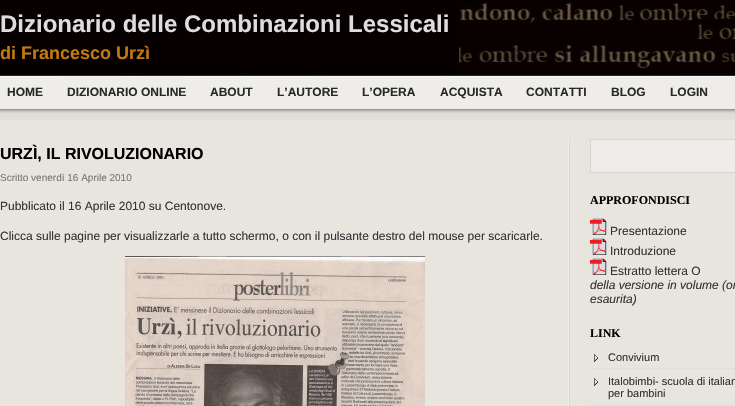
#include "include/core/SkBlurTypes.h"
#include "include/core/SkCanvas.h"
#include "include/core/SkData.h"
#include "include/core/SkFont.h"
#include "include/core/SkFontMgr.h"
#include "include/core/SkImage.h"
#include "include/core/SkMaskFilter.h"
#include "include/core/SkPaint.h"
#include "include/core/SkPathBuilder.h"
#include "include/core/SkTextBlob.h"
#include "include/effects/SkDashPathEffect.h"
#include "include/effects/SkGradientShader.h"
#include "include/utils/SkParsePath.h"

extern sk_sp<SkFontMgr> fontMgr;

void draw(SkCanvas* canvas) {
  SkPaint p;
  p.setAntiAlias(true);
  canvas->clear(SkColorSetRGB(231, 229, 222));
  canvas->drawImageRect(SkImages::DeferredFromEncodedData(SkData::MakeFromFileName("images/1.png")), SkRect::MakeLTRB(0, 0, 735, 120), SkSamplingOptions());
  p.setColor(SkColorSetRGB(6, 0, 0));
  canvas->drawRect(SkRect::MakeLTRB(0, 0, 459, 74), p);
  canvas->drawImageRect(SkImages::DeferredFromEncodedData(SkData::MakeFromFileName("images/2.png")), SkRect::MakeLTRB(568, 139, 570, 406), SkSamplingOptions());
  canvas->drawImageRect(SkImages::DeferredFromEncodedData(SkData::MakeFromFileName("images/3.png")), SkRect::MakeLTRB(125, 256, 425, 406), SkSamplingOptions());
  p.setColor(SkColorSetRGB(238, 237, 234));
  canvas->drawRect(SkRect::MakeLTRB(590.5f, 139.5f, 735.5f, 172.5f), p);
  p.setStyle(SkPaint::kStroke_Style);
  p.setStrokeWidth(1);
  p.setColor(SkColorSetRGB(214, 212, 205));
  canvas->drawRect(SkRect::MakeLTRB(590.5f, 139.5f, 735.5f, 172.5f), p);
  canvas->drawImageRect(SkImages::DeferredFromEncodedData(SkData::MakeFromFileName("images/4.png")), SkRect::MakeLTRB(590, 218, 607, 235), SkSamplingOptions());
  canvas->drawImageRect(SkImages::DeferredFromEncodedData(SkData::MakeFromFileName("images/4.png")), SkRect::MakeLTRB(590, 238, 607, 255), SkSamplingOptions());
  canvas->drawImageRect(SkImages::DeferredFromEncodedData(SkData::MakeFromFileName("images/4.png")), SkRect::MakeLTRB(590, 258, 607, 275), SkSamplingOptions());
  canvas->drawImageRect(SkImages::DeferredFromEncodedData(SkData::MakeFromFileName("images/5.png")), SkRect::MakeLTRB(594, 354, 598, 362), SkSamplingOptions());
  p.setColor(SkColorSetRGB(218, 218, 218));
  p.setPathEffect(SkDashPathEffect::Make({{1, 1}}, 0));
  canvas->drawPath(SkPathBuilder().moveTo(590, 368.5f).lineTo(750, 368.5f).detach(), p);
  p.setPathEffect(nullptr);
  canvas->drawImageRect(SkImages::DeferredFromEncodedData(SkData::MakeFromFileName("images/5.png")), SkRect::MakeLTRB(594, 378, 598, 386), SkSamplingOptions());
  p.setPathEffect(SkDashPathEffect::Make({{1, 1}}, 0));
  canvas->drawPath(SkPathBuilder().moveTo(590, 404.5f).lineTo(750, 404.5f).detach(), p);
  p.setPathEffect(nullptr);
  SkFont font1(fontMgr->matchFamilyStyle("Liberation Sans", SkFontStyle::Bold()), 24);
  font1.setSubpixel(true);
  p.setStyle(SkPaint::kFill_Style);
  p.setColor(SkColorSetRGB(221, 221, 221));
  canvas->drawString("Dizionario delle Combinazioni Lessicali", 0, 32, font1, p);
  SkFont font2(fontMgr->matchFamilyStyle("Liberation Sans", SkFontStyle::Bold()), 18);
  font2.setSubpixel(true);
  p.setColor(SkColorSetRGB(192, 122, 15));
  canvas->drawString("di Francesco Urzì", 0, 59, font2, p);
  SkFont font3(fontMgr->matchFamilyStyle("Liberation Sans", SkFontStyle::Bold()), 12);
  font3.setSubpixel(true);
  p.setColor(SkColorSetRGB(41, 41, 41));
  canvas->drawString("HOME", 7, 96, font3, p);
  canvas->drawString("DIZIONARIO ONLINE", 67, 96, font3, p);
  canvas->drawString("ABOUT", 210, 96, font3, p);
  canvas->drawString("L’AUTORE", 277, 96, font3, p);
  canvas->drawString("L’OPERA", 362, 96, font3, p);
  canvas->drawString("ACQUISTA", 440, 96, font3, p);
  canvas->drawString("CONTATTI", 526, 96, font3, p);
  canvas->drawString("BLOG", 611, 96, font3, p);
  canvas->drawString("LOGIN", 670, 96, font3, p);
  SkFont font4(fontMgr->matchFamilyStyle("Liberation Sans", SkFontStyle::Bold()), 16);
  font4.setSubpixel(true);
  p.setColor(SK_ColorBLACK);
  canvas->drawString("URZÌ, IL RIVOLUZIONARIO", 0, 159, font4, p);
  SkFont font5(fontMgr->matchFamilyStyle("Liberation Sans", SkFontStyle::Normal()), 10);
  font5.setSubpixel(true);
  p.setColor(SkColorSetRGB(119, 119, 119));
  canvas->drawString("Scritto venerdì 16 Aprile 2010", 0, 181, font5, p);
  SkFont font6(fontMgr->matchFamilyStyle("Liberation Sans", SkFontStyle::Normal()), 12);
  font6.setSubpixel(true);
  p.setColor(SkColorSetRGB(51, 51, 51));
  canvas->drawString("Pubblicato il 16 Aprile 2010 su Centonove.", 0, 210, font6, p);
  canvas->drawString("Clicca sulle pagine per visualizzarle a tutto schermo, o con il pulsante destro del mouse per scaricarle.", 0, 240, font6, p);
  SkFont font7(fontMgr->matchFamilyStyle("Liberation Serif", SkFontStyle::Bold()), 12);
  font7.setSubpixel(true);
  p.setColor(SK_ColorBLACK);
  canvas->drawString("APPROFONDISCI", 590, 204, font7, p);
  p.setColor(SkColorSetRGB(51, 51, 51));
  canvas->drawString("Presentazione", 610, 235, font6, p);
  canvas->drawString("Introduzione", 610, 255, font6, p);
  canvas->drawString("Estratto lettera O", 610, 275, font6, p);
  SkFont font8(fontMgr->matchFamilyStyle("Liberation Sans", SkFontStyle::Italic()), 12);
  font8.setSubpixel(true);
  canvas->drawString("della versione in volume (or", 590, 289, font8, p);
  canvas->drawString("esaurita)", 590, 303, font8, p);
  p.setColor(SK_ColorBLACK);
  canvas->drawString("LINK", 590, 337, font7, p);
  SkFont font9(fontMgr->matchFamilyStyle("Liberation Sans", SkFontStyle::Normal()), 11);
  font9.setSubpixel(true);
  p.setColor(SkColorSetRGB(51, 51, 51));
  canvas->drawString("Convivium", 608, 361, font9, p);
  canvas->drawString("Italobimbi- scuola di italian", 608, 385, font9, p);
  canvas->drawString("per bambini", 608, 397, font9, p);
}
